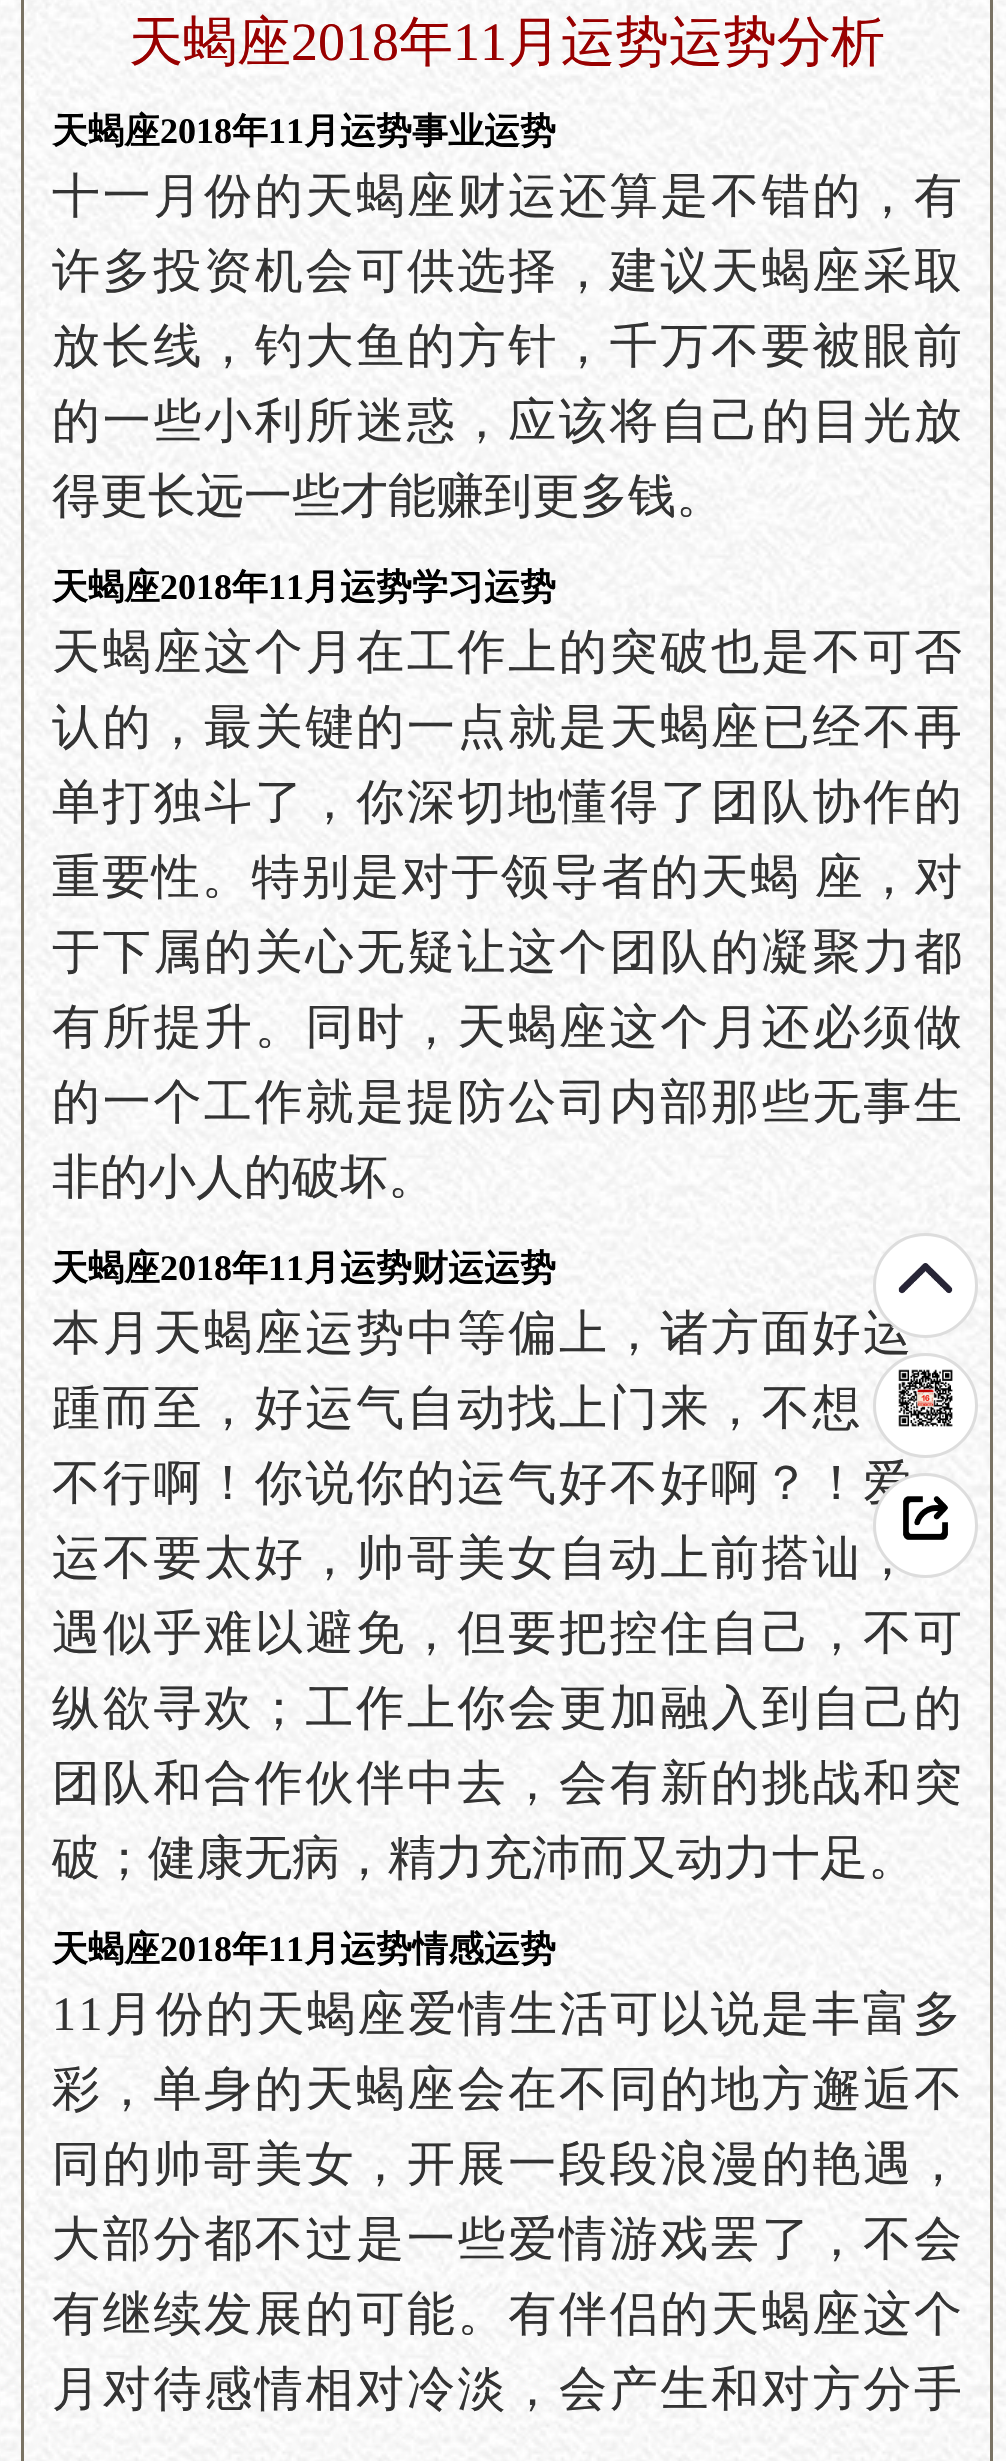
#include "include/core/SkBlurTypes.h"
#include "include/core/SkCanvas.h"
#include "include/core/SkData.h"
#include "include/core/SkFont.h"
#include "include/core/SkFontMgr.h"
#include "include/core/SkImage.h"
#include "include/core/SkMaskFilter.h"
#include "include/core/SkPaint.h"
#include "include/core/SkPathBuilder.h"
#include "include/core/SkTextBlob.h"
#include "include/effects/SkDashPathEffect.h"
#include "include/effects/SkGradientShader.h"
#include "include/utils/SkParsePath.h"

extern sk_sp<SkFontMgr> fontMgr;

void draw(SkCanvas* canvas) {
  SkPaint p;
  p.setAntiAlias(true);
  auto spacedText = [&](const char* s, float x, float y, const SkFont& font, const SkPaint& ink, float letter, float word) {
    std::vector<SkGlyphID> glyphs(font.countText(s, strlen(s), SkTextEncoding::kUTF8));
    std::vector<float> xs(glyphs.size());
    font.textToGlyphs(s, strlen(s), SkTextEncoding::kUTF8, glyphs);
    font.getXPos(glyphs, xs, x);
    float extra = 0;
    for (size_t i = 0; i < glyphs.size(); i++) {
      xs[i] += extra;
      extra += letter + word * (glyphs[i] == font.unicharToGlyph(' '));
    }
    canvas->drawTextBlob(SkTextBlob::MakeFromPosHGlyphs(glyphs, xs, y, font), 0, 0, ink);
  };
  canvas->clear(SK_ColorWHITE);
  canvas->drawImageRect(SkImages::DeferredFromEncodedData(SkData::MakeFromFileName("images/1.png")), SkRect::MakeLTRB(0, 0, 1006, 2461), SkSamplingOptions());
  p.setStyle(SkPaint::kStroke_Style);
  p.setStrokeWidth(3);
  p.setColor(SkColorSetRGB(121, 114, 99));
  canvas->drawRect(SkRect::MakeLTRB(22.5f, -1.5f, 991.5f, 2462.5f), p);
  SkFont font1(fontMgr->matchFamilyStyle("WenQuanYi Zen Hei", SkFontStyle(500, SkFontStyle::kNormal_Width, SkFontStyle::kUpright_Slant)), 54);
  font1.setSubpixel(true);
  p.setStyle(SkPaint::kFill_Style);
  p.setColor(SkColorSetRGB(153, 0, 0));
  canvas->drawString("天蝎座", 129, 60, font1, p);
  SkFont font2(fontMgr->matchFamilyStyle("Liberation Serif", SkFontStyle::Normal()), 54);
  font2.setSubpixel(true);
  canvas->drawString("2018", 291, 60, font2, p);
  canvas->drawString("年", 399, 60, font1, p);
  canvas->drawString("11", 453, 60, font2, p);
  canvas->drawString("月运势运势分析", 507, 60, font1, p);
  SkFont font3(fontMgr->matchFamilyStyle("WenQuanYi Zen Hei", SkFontStyle::Bold()), 36);
  font3.setSubpixel(true);
  p.setColor(SK_ColorBLACK);
  canvas->drawString("天蝎座", 52, 143, font3, p);
  SkFont font4(fontMgr->matchFamilyStyle("Liberation Serif", SkFontStyle::Bold()), 36);
  font4.setSubpixel(true);
  canvas->drawString("2018", 160, 143, font4, p);
  canvas->drawString("年", 232, 143, font3, p);
  canvas->drawString("11", 268, 143, font4, p);
  canvas->drawString("月运势事业运势", 304, 143, font3, p);
  SkFont font5(fontMgr->matchFamilyStyle("WenQuanYi Zen Hei", SkFontStyle(500, SkFontStyle::kNormal_Width, SkFontStyle::kUpright_Slant)), 48);
  font5.setSubpixel(true);
  p.setColor(SkColorSetRGB(51, 51, 51));
  spacedText("十一月份的天蝎座财运还算是不错的，有", 52, 212, font5, p, 2.7f, 0);
  spacedText("许多投资机会可供选择，建议天蝎座采取", 52, 287, font5, p, 2.7f, 0);
  spacedText("放长线，钓大鱼的方针，千万不要被眼前", 52, 362, font5, p, 2.7f, 0);
  spacedText("的一些小利所迷惑，应该将自己的目光放", 52, 437, font5, p, 2.7f, 0);
  canvas->drawString("得更长远一些才能赚到更多钱。", 52, 512, font5, p);
  p.setColor(SK_ColorBLACK);
  canvas->drawString("天蝎座", 52, 599, font3, p);
  canvas->drawString("2018", 160, 599, font4, p);
  canvas->drawString("年", 232, 599, font3, p);
  canvas->drawString("11", 268, 599, font4, p);
  canvas->drawString("月运势学习运势", 304, 599, font3, p);
  p.setColor(SkColorSetRGB(51, 51, 51));
  spacedText("天蝎座这个月在工作上的突破也是不可否", 52, 668, font5, p, 2.7f, 0);
  spacedText("认的，最关键的一点就是天蝎座已经不再", 52, 743, font5, p, 2.7f, 0);
  spacedText("单打独斗了，你深切地懂得了团队协作的", 52, 818, font5, p, 2.7f, 0);
  spacedText("重要性。特别是对于领导者的天蝎 座，对", 52, 893, font5, p, 1.9f, -2);
  spacedText("于下属的关心无疑让这个团队的凝聚力都", 52, 968, font5, p, 2.7f, 0);
  spacedText("有所提升。同时，天蝎座这个月还必须做", 52, 1043, font5, p, 2.7f, 0);
  spacedText("的一个工作就是提防公司内部那些无事生", 52, 1118, font5, p, 2.7f, 0);
  canvas->drawString("非的小人的破坏。", 52, 1193, font5, p);
  p.setColor(SK_ColorBLACK);
  canvas->drawString("天蝎座", 52, 1280, font3, p);
  canvas->drawString("2018", 160, 1280, font4, p);
  canvas->drawString("年", 232, 1280, font3, p);
  canvas->drawString("11", 268, 1280, font4, p);
  canvas->drawString("月运势财运运势", 304, 1280, font3, p);
  p.setColor(SkColorSetRGB(51, 51, 51));
  spacedText("本月天蝎座运势中等偏上，诸方面好运", 52, 1349, font5, p, 2.7f, 0);
  spacedText("踵而至，好运气自动找上门来，不想", 52, 1424, font5, p, 2.7f, 0);
  spacedText("不行啊！你说你的运气好不好啊？！爱", 52, 1499, font5, p, 2.7f, 0);
  spacedText("运不要太好，帅哥美女自动上前搭讪，", 52, 1574, font5, p, 2.7f, 0);
  spacedText("遇似乎难以避免，但要把控住自己，不可", 52, 1649, font5, p, 2.7f, 0);
  spacedText("纵欲寻欢；工作上你会更加融入到自己的", 52, 1724, font5, p, 2.7f, 0);
  spacedText("团队和合作伙伴中去，会有新的挑战和突", 52, 1799, font5, p, 2.7f, 0);
  canvas->drawString("破；健康无病，精力充沛而又动力十足。", 52, 1874, font5, p);
  p.setColor(SK_ColorBLACK);
  canvas->drawString("天蝎座", 52, 1961, font3, p);
  canvas->drawString("2018", 160, 1961, font4, p);
  canvas->drawString("年", 232, 1961, font3, p);
  canvas->drawString("11", 268, 1961, font4, p);
  canvas->drawString("月运势情感运势", 304, 1961, font3, p);
  SkFont font6(fontMgr->matchFamilyStyle("Liberation Serif", SkFontStyle::Normal()), 48);
  font6.setSubpixel(true);
  p.setColor(SkColorSetRGB(51, 51, 51));
  spacedText("11", 52, 2030, font6, p, 2.5f, 0);
  spacedText("月份的天蝎座爱情生活可以说是丰富多", 105, 2030, font5, p, 2.5f, 0);
  spacedText("彩，单身的天蝎座会在不同的地方邂逅不", 52, 2105, font5, p, 2.7f, 0);
  spacedText("同的帅哥美女，开展一段段浪漫的艳遇，", 52, 2180, font5, p, 2.7f, 0);
  spacedText("大部分都不过是一些爱情游戏罢了，不会", 52, 2255, font5, p, 2.7f, 0);
  spacedText("有继续发展的可能。有伴侣的天蝎座这个", 52, 2330, font5, p, 2.7f, 0);
  spacedText("月对待感情相对冷淡，会产生和对方分手", 52, 2405, font5, p, 2.7f, 0);
  p.setColor(SK_ColorWHITE);
  canvas->drawCircle(925.5f, 1285.5f, 51, p);
  p.setStyle(SkPaint::kStroke_Style);
  p.setColor(SkColorSetRGB(221, 221, 221));
  canvas->drawCircle(925.5f, 1285.5f, 51, p);
  canvas->drawImageRect(SkImages::DeferredFromEncodedData(SkData::MakeFromFileName("images/2.png")), SkRect::MakeLTRB(898, 1263, 953, 1294), SkSamplingOptions());
  p.setStyle(SkPaint::kFill_Style);
  p.setColor(SK_ColorWHITE);
  canvas->drawCircle(925.5f, 1405.5f, 51, p);
  p.setStyle(SkPaint::kStroke_Style);
  p.setColor(SkColorSetRGB(221, 221, 221));
  canvas->drawCircle(925.5f, 1405.5f, 51, p);
  canvas->drawImageRect(SkImages::DeferredFromEncodedData(SkData::MakeFromFileName("images/3.png")), SkRect::MakeLTRB(898, 1369, 953, 1427), SkSamplingOptions());
  p.setStyle(SkPaint::kFill_Style);
  p.setColor(SK_ColorWHITE);
  canvas->drawCircle(925.5f, 1525.5f, 51, p);
  p.setStyle(SkPaint::kStroke_Style);
  p.setColor(SkColorSetRGB(221, 221, 221));
  canvas->drawCircle(925.5f, 1525.5f, 51, p);
  canvas->drawImageRect(SkImages::DeferredFromEncodedData(SkData::MakeFromFileName("images/4.png")), SkRect::MakeLTRB(903, 1496, 948, 1540), SkSamplingOptions());
}
